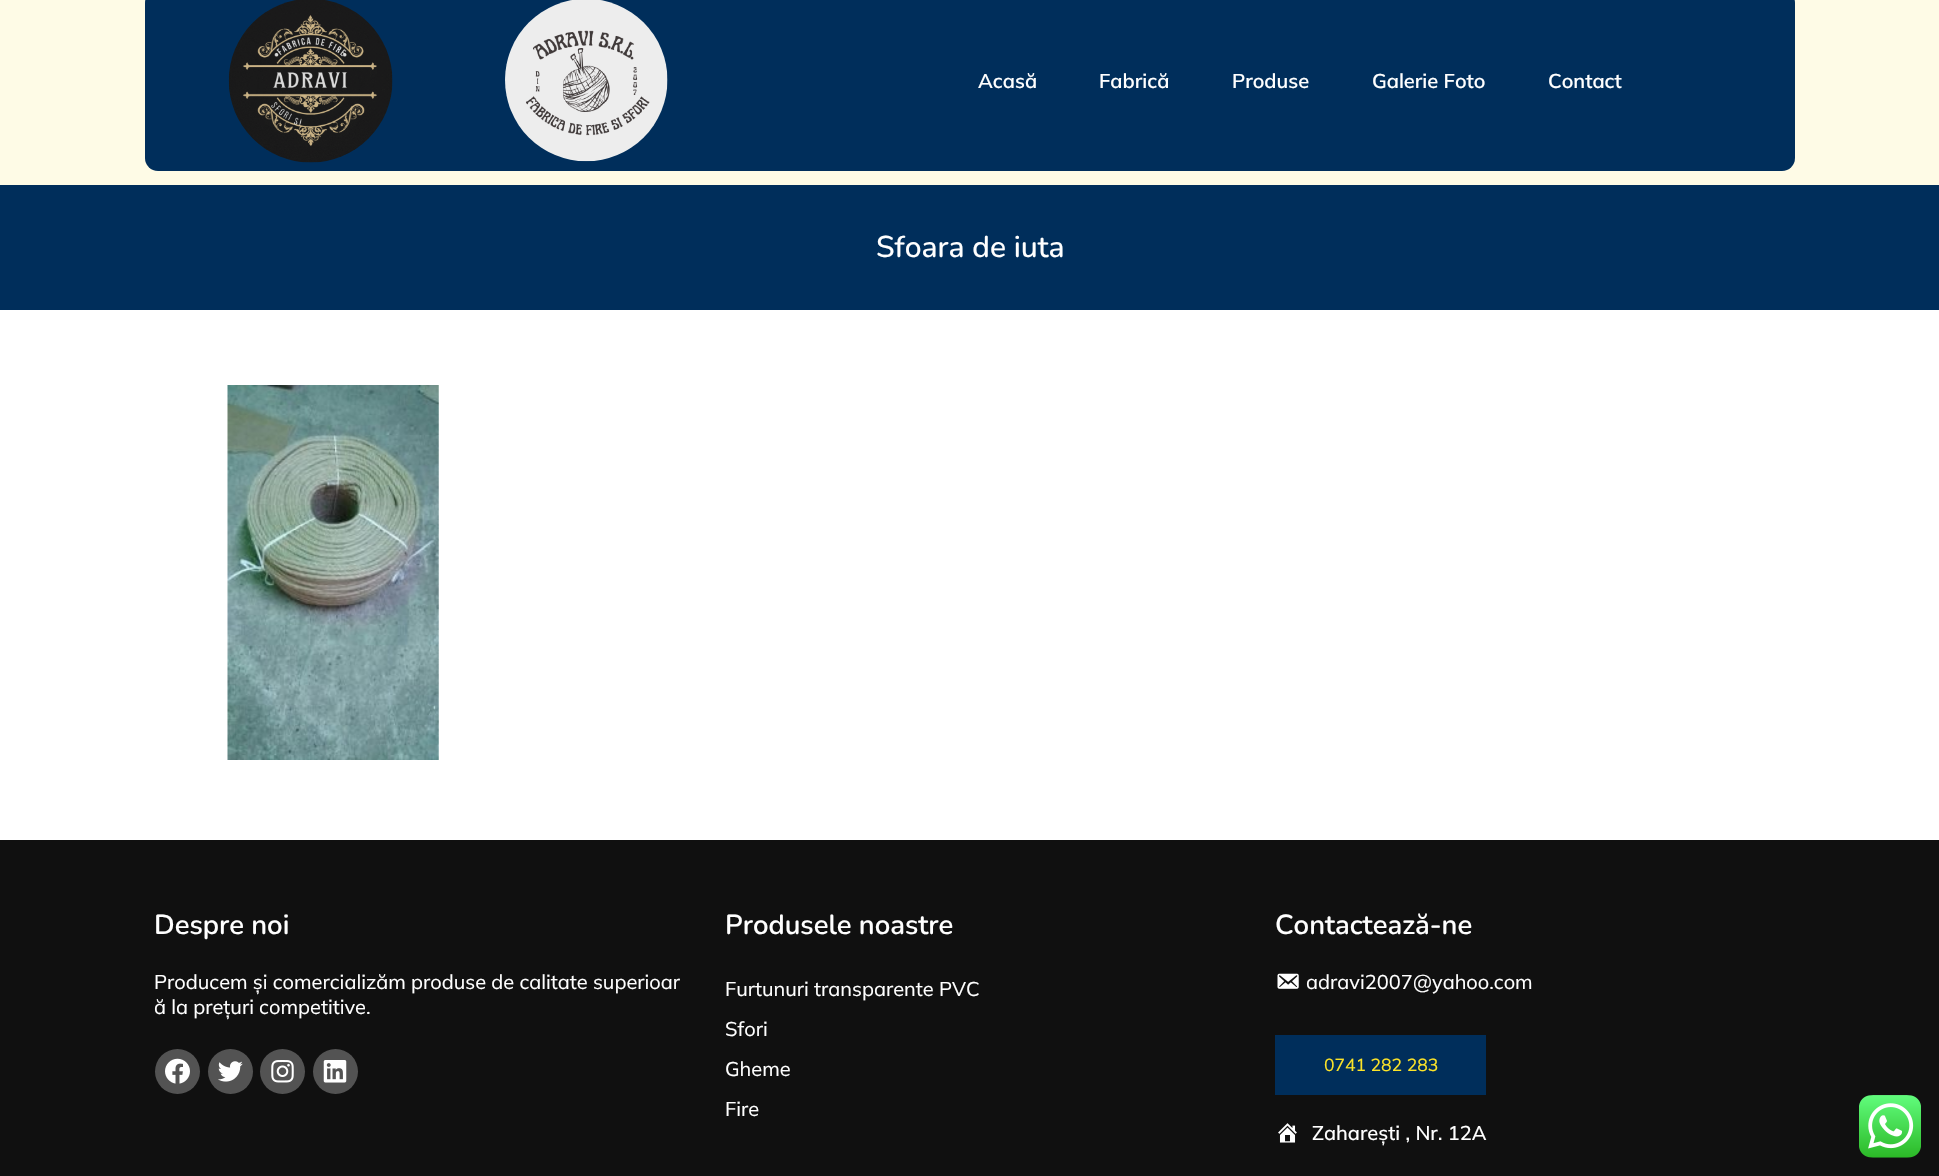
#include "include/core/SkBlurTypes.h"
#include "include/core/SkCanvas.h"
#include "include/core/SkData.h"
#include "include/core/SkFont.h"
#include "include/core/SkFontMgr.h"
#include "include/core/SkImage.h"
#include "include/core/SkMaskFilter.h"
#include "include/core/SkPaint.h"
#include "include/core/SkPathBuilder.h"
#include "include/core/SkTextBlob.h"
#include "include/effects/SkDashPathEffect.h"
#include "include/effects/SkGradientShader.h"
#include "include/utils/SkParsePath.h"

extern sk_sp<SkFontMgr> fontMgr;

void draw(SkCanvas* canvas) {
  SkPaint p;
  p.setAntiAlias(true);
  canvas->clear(SK_ColorWHITE);
  p.setColor(SkColorSetRGB(254, 251, 230));
  canvas->drawRect(SkRect::MakeLTRB(0, 0, 1939, 185), p);
  p.setColor(SkColorSetRGB(0, 46, 91));
  canvas->drawRoundRect(SkRect::MakeLTRB(145, -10, 1795, 171), 13, 13, p);
  canvas->drawImageRect(SkImages::DeferredFromEncodedData(SkData::MakeFromFileName("images/1.png")), SkRect::MakeLTRB(228, 0, 393, 163), SkSamplingOptions());
  canvas->drawImageRect(SkImages::DeferredFromEncodedData(SkData::MakeFromFileName("images/2.png")), SkRect::MakeLTRB(505, 0, 668, 162), SkSamplingOptions());
  canvas->drawRect(SkRect::MakeLTRB(0, 185, 1939, 310), p);
  canvas->drawImageRect(SkImages::DeferredFromEncodedData(SkData::MakeFromFileName("images/3.png")), SkRect::MakeLTRB(227, 385, 439, 760), SkSamplingOptions());
  p.setColor(SkColorSetRGB(16, 16, 16));
  canvas->drawRect(SkRect::MakeLTRB(0, 840, 1939, 1176), p);
  p.setColor(SkColorSetRGB(83, 83, 83));
  canvas->drawCircle(177.5f, 1071.5f, 22.5f, p);
  canvas->drawImageRect(SkImages::DeferredFromEncodedData(SkData::MakeFromFileName("images/4.png")), SkRect::MakeLTRB(165, 1058, 190, 1084), SkSamplingOptions());
  canvas->drawCircle(230.5f, 1071.5f, 22.5f, p);
  canvas->drawImageRect(SkImages::DeferredFromEncodedData(SkData::MakeFromFileName("images/5.png")), SkRect::MakeLTRB(218, 1061, 243, 1082), SkSamplingOptions());
  canvas->drawCircle(282.5f, 1071.5f, 22.5f, p);
  canvas->drawImageRect(SkImages::DeferredFromEncodedData(SkData::MakeFromFileName("images/6.png")), SkRect::MakeLTRB(271, 1060, 294, 1083), SkSamplingOptions());
  canvas->drawCircle(335.5f, 1071.5f, 22.5f, p);
  canvas->drawImageRect(SkImages::DeferredFromEncodedData(SkData::MakeFromFileName("images/7.png")), SkRect::MakeLTRB(323, 1060, 347, 1083), SkSamplingOptions());
  canvas->drawImageRect(SkImages::DeferredFromEncodedData(SkData::MakeFromFileName("images/8.png")), SkRect::MakeLTRB(1277, 973, 1299, 989), SkSamplingOptions());
  p.setColor(SkColorSetRGB(0, 46, 91));
  canvas->drawRect(SkRect::MakeLTRB(1275, 1035, 1486, 1095), p);
  canvas->drawImageRect(SkImages::DeferredFromEncodedData(SkData::MakeFromFileName("images/9.png")), SkRect::MakeLTRB(1278, 1123, 1297, 1143), SkSamplingOptions());
  canvas->drawImageRect(SkImages::DeferredFromEncodedData(SkData::MakeFromFileName("images/10.png")), SkRect::MakeLTRB(1859, 1095, 1921, 1158), SkSamplingOptions());
  SkFont font1(fontMgr->matchFamilyStyle("Mulish", SkFontStyle(600, SkFontStyle::kNormal_Width, SkFontStyle::kUpright_Slant)), 20);
  font1.setSubpixel(true);
  p.setColor(SK_ColorWHITE);
  canvas->drawString("Acasă", 978, 88, font1, p);
  canvas->drawString("Fabrică", 1099, 88, font1, p);
  canvas->drawString("Produse", 1232, 88, font1, p);
  canvas->drawString("Galerie Foto", 1372, 88, font1, p);
  canvas->drawString("Contact", 1548, 88, font1, p);
  SkFont font2(fontMgr->matchFamilyStyle("Nunito", SkFontStyle(500, SkFontStyle::kNormal_Width, SkFontStyle::kUpright_Slant)), 30);
  font2.setSubpixel(true);
  canvas->drawString("Sfoara de iuta", 876, 257, font2, p);
  SkFont font3(fontMgr->matchFamilyStyle("Nunito", SkFontStyle(600, SkFontStyle::kNormal_Width, SkFontStyle::kUpright_Slant)), 27.5f);
  font3.setSubpixel(true);
  canvas->drawString("Despre noi", 154, 934, font3, p);
  SkFont font4(fontMgr->matchFamilyStyle("Mulish", SkFontStyle::Normal()), 20);
  font4.setSubpixel(true);
  canvas->drawString("Producem și comercializăm produse de calitate superioar", 154, 989, font4, p);
  canvas->drawString("ă la prețuri competitive.", 154, 1014, font4, p);
  canvas->drawString("Produsele noastre", 725, 934, font3, p);
  canvas->drawString("Furtunuri transparente PVC", 725, 996, font4, p);
  canvas->drawString("Sfori", 725, 1036, font4, p);
  canvas->drawString("Gheme", 725, 1076, font4, p);
  canvas->drawString("Fire", 725, 1116, font4, p);
  canvas->drawString("Contactează-ne", 1275, 934, font3, p);
  canvas->drawString("adravi2007@yahoo.com", 1306, 989, font4, p);
  SkFont font5(fontMgr->matchFamilyStyle("Mulish", SkFontStyle::Normal()), 17.5f);
  font5.setSubpixel(true);
  p.setColor(SkColorSetRGB(253, 228, 40));
  canvas->drawString("0741 282 283", 1324, 1071, font5, p);
  SkFont font6(fontMgr->matchFamilyStyle("Mulish", SkFontStyle(500, SkFontStyle::kNormal_Width, SkFontStyle::kUpright_Slant)), 20);
  font6.setSubpixel(true);
  p.setColor(SK_ColorWHITE);
  canvas->drawString("Zaharești , Nr. 12A", 1312, 1140, font6, p);
}
